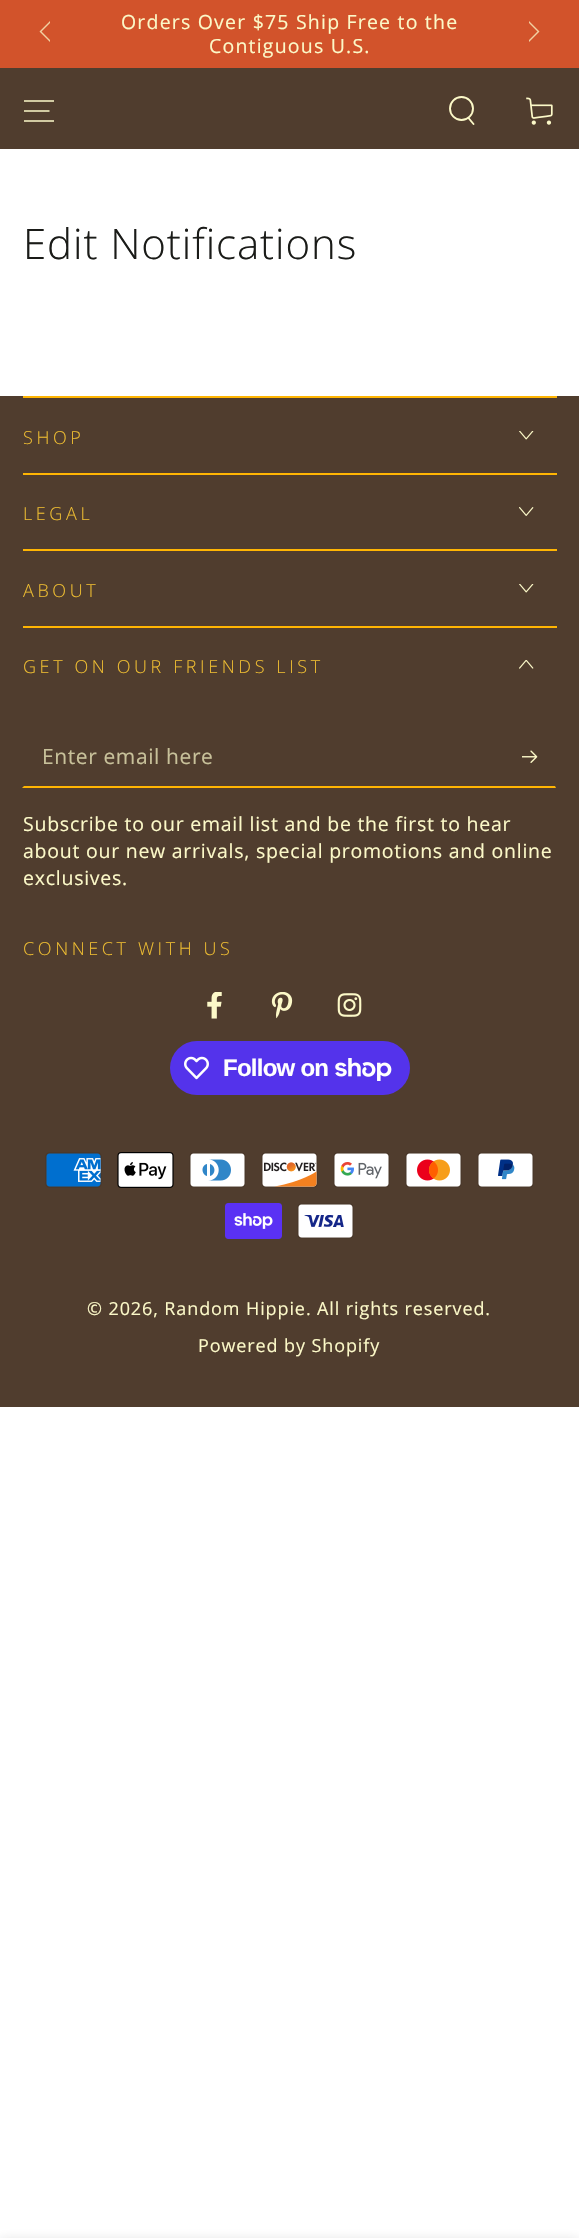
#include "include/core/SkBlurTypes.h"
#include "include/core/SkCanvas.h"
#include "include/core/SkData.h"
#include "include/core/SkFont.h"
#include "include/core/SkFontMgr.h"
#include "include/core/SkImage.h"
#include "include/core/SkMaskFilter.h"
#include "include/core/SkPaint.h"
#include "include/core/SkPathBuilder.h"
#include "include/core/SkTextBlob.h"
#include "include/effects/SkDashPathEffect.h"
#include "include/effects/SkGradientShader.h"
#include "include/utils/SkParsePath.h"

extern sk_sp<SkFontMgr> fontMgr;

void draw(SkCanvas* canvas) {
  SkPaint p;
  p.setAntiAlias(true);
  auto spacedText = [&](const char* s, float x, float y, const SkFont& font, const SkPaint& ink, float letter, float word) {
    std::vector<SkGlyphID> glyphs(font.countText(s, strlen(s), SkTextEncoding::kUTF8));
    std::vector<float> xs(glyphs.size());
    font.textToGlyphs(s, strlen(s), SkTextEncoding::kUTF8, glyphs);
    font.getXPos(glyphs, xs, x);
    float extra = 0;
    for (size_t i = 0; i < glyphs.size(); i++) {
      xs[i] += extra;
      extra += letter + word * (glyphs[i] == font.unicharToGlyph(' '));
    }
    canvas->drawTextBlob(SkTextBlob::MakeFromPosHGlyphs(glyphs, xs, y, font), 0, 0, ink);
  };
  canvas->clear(SK_ColorWHITE);
  p.setColor(SkColorSetRGB(210, 83, 43));
  canvas->drawRect(SkRect::MakeLTRB(0, 0, 579, 68), p);
  p.setColor(SkColorSetRGB(242, 208, 161));
  canvas->drawPath(SkPathBuilder(SkPathFillType::kEvenOdd).moveTo(39.5f, 31.5f).lineTo(50, 42).lineTo(50, 40).lineTo(41.5f, 31.5f).lineTo(50, 23).lineTo(50, 21).close().detach(), p);
  canvas->drawPath(SkPathBuilder(SkPathFillType::kEvenOdd).moveTo(539.5f, 31.5f).lineTo(529, 42).lineTo(529, 40).lineTo(537.5f, 31.5f).lineTo(529, 23).lineTo(529, 21).close().detach(), p);
  p.setColor(SkColorSetRGB(80, 61, 46));
  canvas->drawRect(SkRect::MakeLTRB(0, 68, 579, 149), p);
  p.setStyle(SkPaint::kStroke_Style);
  p.setStrokeWidth(1.7f);
  p.setColor(SkColorSetRGB(252, 249, 200));
  canvas->drawPath(SkPathBuilder().moveTo(24, 121).lineTo(54, 121).moveTo(24, 111).lineTo(49.5f, 111).moveTo(24, 101).lineTo(54, 101).detach(), p);
  p.setStrokeWidth(1.9f);
  canvas->drawCircle(461.5f, 108.5f, 11.5f, p);
  p.setStrokeCap(SkPaint::kRound_Cap);
  canvas->drawPath(SkPathBuilder().moveTo(468.5f, 118).lineTo(473.5f, 124).detach(), p);
  canvas->drawImageRect(SkImages::DeferredFromEncodedData(SkData::MakeFromFileName("images/1.png")), SkRect::MakeLTRB(526, 97, 553, 125), SkSamplingOptions());
  p.setStyle(SkPaint::kFill_Style);
  p.setColor(SkColorSetRGB(80, 61, 46));
  canvas->drawRect(SkRect::MakeLTRB(0, 396, 579, 1407), p);
  p.setColor(SkColorSetRGB(255, 181, 3));
  canvas->drawRect(SkRect::MakeLTRB(23, 396, 557, 398), p);
  canvas->drawRect(SkRect::MakeLTRB(23, 473, 557, 475), p);
  canvas->drawImageRect(SkImages::DeferredFromEncodedData(SkData::MakeFromFileName("images/2.png")), SkRect::MakeLTRB(519, 431, 534, 440), SkSamplingOptions());
  canvas->drawRect(SkRect::MakeLTRB(23, 549, 557, 551), p);
  canvas->drawImageRect(SkImages::DeferredFromEncodedData(SkData::MakeFromFileName("images/3.png")), SkRect::MakeLTRB(519, 507, 534, 516), SkSamplingOptions());
  canvas->drawRect(SkRect::MakeLTRB(23, 626, 557, 628), p);
  canvas->drawImageRect(SkImages::DeferredFromEncodedData(SkData::MakeFromFileName("images/2.png")), SkRect::MakeLTRB(519, 584, 534, 593), SkSamplingOptions());
  canvas->drawImageRect(SkImages::DeferredFromEncodedData(SkData::MakeFromFileName("images/4.png")), SkRect::MakeLTRB(519, 660, 534, 669), SkSamplingOptions());
  canvas->drawPath(SkPathBuilder().moveTo(556, 788).lineTo(22, 788).lineTo(24, 786).lineTo(555, 786).close().detach(), p);
  canvas->drawImageRect(SkImages::DeferredFromEncodedData(SkData::MakeFromFileName("images/5.png")), SkRect::MakeLTRB(522, 750, 538, 763), SkSamplingOptions());
  canvas->drawImageRect(SkImages::DeferredFromEncodedData(SkData::MakeFromFileName("images/6.png")), SkRect::MakeLTRB(207, 992, 222, 1019), SkSamplingOptions());
  canvas->drawImageRect(SkImages::DeferredFromEncodedData(SkData::MakeFromFileName("images/7.png")), SkRect::MakeLTRB(271, 992, 293, 1019), SkSamplingOptions());
  canvas->drawImageRect(SkImages::DeferredFromEncodedData(SkData::MakeFromFileName("images/8.png")), SkRect::MakeLTRB(337, 993, 362, 1017), SkSamplingOptions());
  p.setColor(SkColorSetRGB(84, 51, 235));
  canvas->drawRoundRect(SkRect::MakeLTRB(170, 1041, 410, 1095), 27, 27, p);
  canvas->drawImageRect(SkImages::DeferredFromEncodedData(SkData::MakeFromFileName("images/9.png")), SkRect::MakeLTRB(184, 1056, 209, 1080), SkSamplingOptions());
  canvas->drawImageRect(SkImages::DeferredFromEncodedData(SkData::MakeFromFileName("images/10.png")), SkRect::MakeLTRB(335, 1058, 392, 1081), SkSamplingOptions());
  canvas->drawImageRect(SkImages::DeferredFromEncodedData(SkData::MakeFromFileName("images/11.png")), SkRect::MakeLTRB(45, 1152, 102, 1188), SkSamplingOptions());
  canvas->drawImageRect(SkImages::DeferredFromEncodedData(SkData::MakeFromFileName("images/12.png")), SkRect::MakeLTRB(117, 1152, 174, 1188), SkSamplingOptions());
  canvas->drawImageRect(SkImages::DeferredFromEncodedData(SkData::MakeFromFileName("images/13.png")), SkRect::MakeLTRB(189, 1152, 246, 1188), SkSamplingOptions());
  canvas->drawImageRect(SkImages::DeferredFromEncodedData(SkData::MakeFromFileName("images/14.png")), SkRect::MakeLTRB(261, 1152, 318, 1188), SkSamplingOptions());
  canvas->drawImageRect(SkImages::DeferredFromEncodedData(SkData::MakeFromFileName("images/15.png")), SkRect::MakeLTRB(333, 1152, 390, 1188), SkSamplingOptions());
  canvas->drawImageRect(SkImages::DeferredFromEncodedData(SkData::MakeFromFileName("images/16.png")), SkRect::MakeLTRB(405, 1152, 462, 1188), SkSamplingOptions());
  canvas->drawImageRect(SkImages::DeferredFromEncodedData(SkData::MakeFromFileName("images/17.png")), SkRect::MakeLTRB(477, 1152, 534, 1188), SkSamplingOptions());
  canvas->drawImageRect(SkImages::DeferredFromEncodedData(SkData::MakeFromFileName("images/18.png")), SkRect::MakeLTRB(225, 1203, 282, 1239), SkSamplingOptions());
  canvas->drawImageRect(SkImages::DeferredFromEncodedData(SkData::MakeFromFileName("images/19.png")), SkRect::MakeLTRB(297, 1203, 354, 1239), SkSamplingOptions());
  p.setColor(SkColorSetARGB(38, 33, 35, 38));
  p.setMaskFilter(SkMaskFilter::MakeBlur(kNormal_SkBlurStyle, 6));
  canvas->drawRect(SkRect::MakeLTRB(0, 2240, 579, 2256), p);
  p.setMaskFilter(nullptr);
  SkFont font1(fontMgr->matchFamilyStyle("Open Sans", SkFontStyle::Normal()), 19.5f);
  font1.setSubpixel(true);
  p.setColor(SkColorSetRGB(252, 249, 200));
  spacedText("Orders Over $75 Ship Free to the", 121, 29, font1, p, 1.2f, 0);
  spacedText("Contiguous U.S.", 209, 53, font1, p, 1.2f, 0);
  SkFont font2(fontMgr->matchFamilyStyle("Open Sans", SkFontStyle(300, SkFontStyle::kNormal_Width, SkFontStyle::kUpright_Slant)), 42);
  font2.setSubpixel(true);
  p.setColor(SkColorSetRGB(26, 27, 24));
  spacedText("Edit Notifications", 23, 259, font2, p, 0.9f, 0);
  SkFont font3(fontMgr->matchFamilyStyle("Open Sans", SkFontStyle(300, SkFontStyle::kNormal_Width, SkFontStyle::kUpright_Slant)), 18);
  font3.setSubpixel(true);
  p.setColor(SkColorSetRGB(237, 188, 49));
  spacedText("SHOP", 23, 444, font3, p, 3.6f, 0);
  spacedText("LEGAL", 23, 520, font3, p, 3.6f, 0);
  spacedText("ABOUT", 23, 597, font3, p, 3.6f, 0);
  spacedText("GET ON OUR FRIENDS LIST", 23, 673, font3, p, 3.6f, 0);
  SkFont font4(fontMgr->matchFamilyStyle("Open Sans", SkFontStyle::Normal()), 21);
  font4.setSubpixel(true);
  p.setColor(SkColorSetRGB(200, 193, 154));
  spacedText("Enter email here", 42, 764, font4, p, 0.6f, 0);
  p.setColor(SkColorSetRGB(252, 249, 200));
  spacedText("Subscribe to our email list and be the first to hear", 23, 831, font1, p, 0.75f, 0);
  spacedText("about our new arrivals, special promotions and online", 23, 858, font1, p, 0.75f, 0);
  spacedText("exclusives.", 23, 885, font1, p, 0.75f, 0);
  p.setColor(SkColorSetRGB(237, 188, 49));
  spacedText("CONNECT WITH US", 23, 955, font3, p, 3.6f, 0);
  SkFont font5(fontMgr->matchFamilyStyle("Liberation Sans", SkFontStyle::Bold()), 24);
  font5.setSubpixel(true);
  p.setColor(SK_ColorWHITE);
  spacedText("Follow on", 223, 1076, font5, p, -0.75f, 0);
  SkFont font6(fontMgr->matchFamilyStyle("Open Sans", SkFontStyle::Normal()), 18);
  font6.setSubpixel(true);
  p.setColor(SkColorSetRGB(252, 249, 200));
  spacedText("© 2026, Random Hippie. All rights reserved.", 87, 1315, font6, p, 0.9f, 0);
  spacedText("Powered by Shopify", 198, 1352, font6, p, 0.9f, 0);
}
